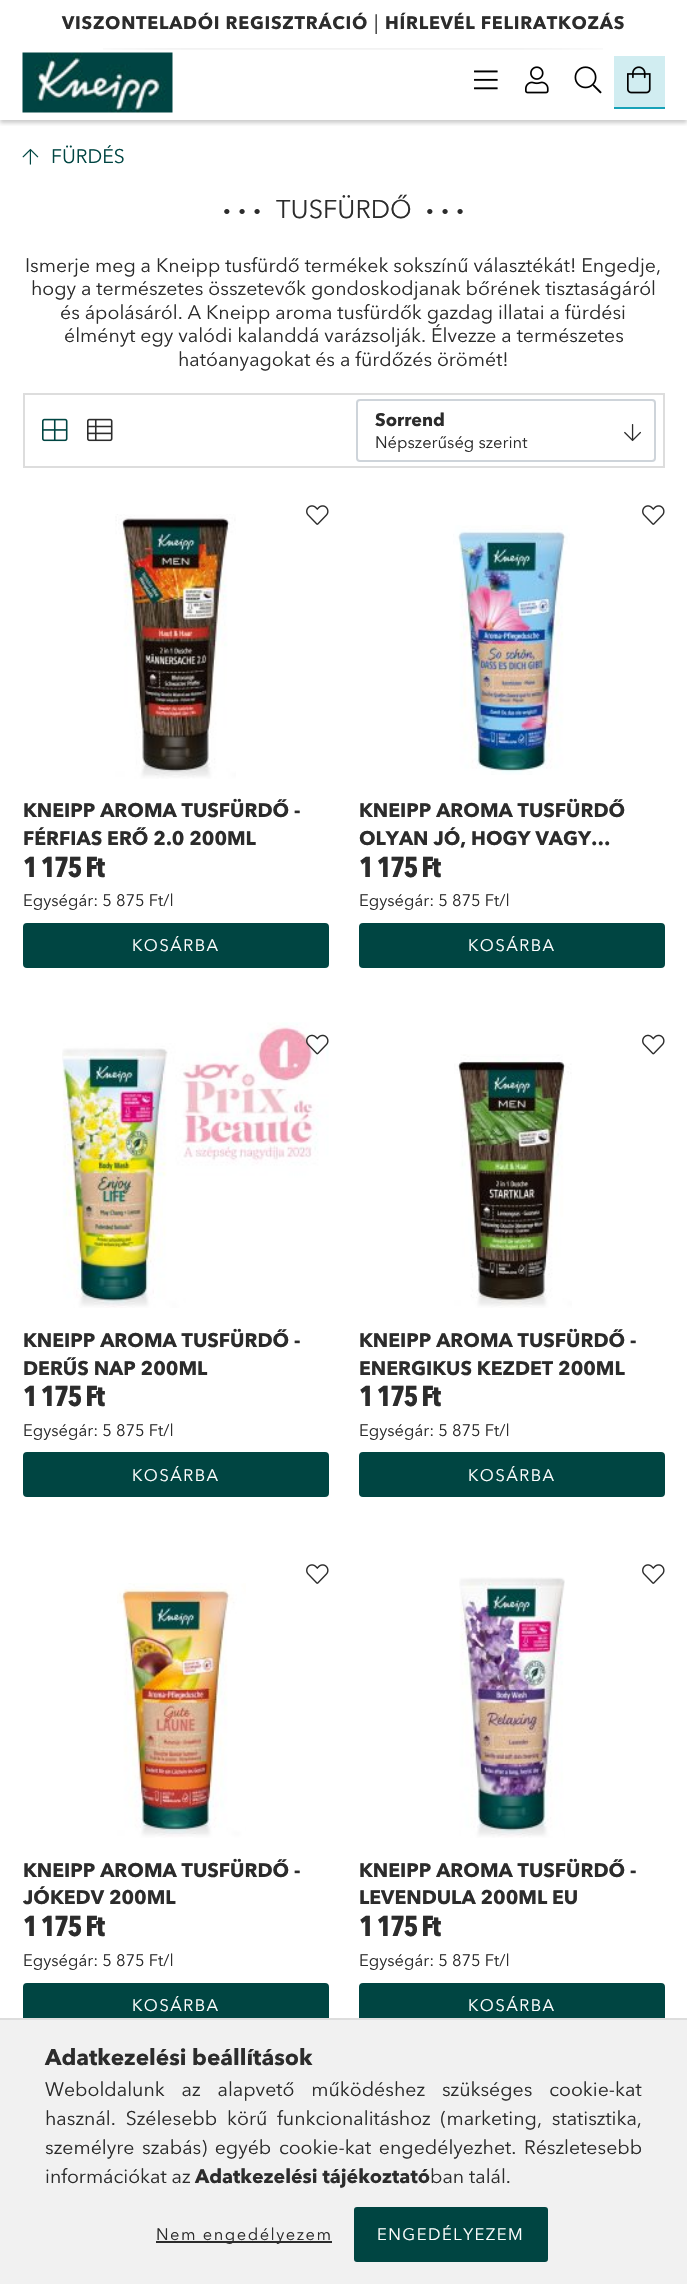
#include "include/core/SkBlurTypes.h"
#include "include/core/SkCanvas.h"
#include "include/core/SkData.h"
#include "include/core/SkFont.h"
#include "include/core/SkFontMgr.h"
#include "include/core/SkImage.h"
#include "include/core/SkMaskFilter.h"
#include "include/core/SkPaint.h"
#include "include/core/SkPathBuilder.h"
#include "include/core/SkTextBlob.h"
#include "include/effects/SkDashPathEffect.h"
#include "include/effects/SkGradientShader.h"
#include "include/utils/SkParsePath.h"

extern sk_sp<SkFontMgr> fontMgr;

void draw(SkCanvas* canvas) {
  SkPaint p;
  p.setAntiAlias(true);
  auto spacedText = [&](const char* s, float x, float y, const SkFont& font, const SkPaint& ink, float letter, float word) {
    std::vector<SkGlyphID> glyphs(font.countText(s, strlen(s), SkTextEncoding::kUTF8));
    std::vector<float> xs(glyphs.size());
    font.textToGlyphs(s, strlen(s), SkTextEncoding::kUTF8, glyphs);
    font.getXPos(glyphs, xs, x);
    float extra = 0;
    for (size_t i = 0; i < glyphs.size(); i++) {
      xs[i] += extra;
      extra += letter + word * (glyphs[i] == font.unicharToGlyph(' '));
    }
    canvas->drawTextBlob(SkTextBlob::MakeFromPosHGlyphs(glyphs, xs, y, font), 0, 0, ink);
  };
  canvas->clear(SK_ColorWHITE);
  canvas->save();
  canvas->clipRect(SkRect::MakeLTRB(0, 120, 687, 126));
  p.setColor(SkColorSetARGB(51, 0, 0, 0));
  p.setMaskFilter(SkMaskFilter::MakeBlur(kNormal_SkBlurStyle, 2));
  canvas->drawRect(SkRect::MakeLTRB(0, 3, 687, 123), p);
  p.setMaskFilter(nullptr);
  canvas->restore();
  canvas->drawImageRect(SkImages::DeferredFromEncodedData(SkData::MakeFromFileName("images/1.png")), SkRect::MakeLTRB(103, 48, 603, 50), SkSamplingOptions());
  canvas->drawImageRect(SkImages::DeferredFromEncodedData(SkData::MakeFromFileName("images/2.png")), SkRect::MakeLTRB(22, 52, 173, 113), SkSamplingOptions());
  canvas->drawImageRect(SkImages::DeferredFromEncodedData(SkData::MakeFromFileName("images/3.png")), SkRect::MakeLTRB(474, 70, 498, 90), SkSamplingOptions());
  canvas->drawImageRect(SkImages::DeferredFromEncodedData(SkData::MakeFromFileName("images/4.png")), SkRect::MakeLTRB(525, 66, 549, 94), SkSamplingOptions());
  canvas->drawImageRect(SkImages::DeferredFromEncodedData(SkData::MakeFromFileName("images/5.png")), SkRect::MakeLTRB(574, 66, 602, 94), SkSamplingOptions());
  p.setColor(SkColorSetRGB(209, 237, 241));
  canvas->drawRect(SkRect::MakeLTRB(614, 56, 665, 107), p);
  p.setColor(SkColorSetRGB(23, 162, 184));
  canvas->drawRect(SkRect::MakeLTRB(614, 107, 665, 109), p);
  canvas->drawImageRect(SkImages::DeferredFromEncodedData(SkData::MakeFromFileName("images/6.png")), SkRect::MakeLTRB(627, 66, 651, 94), SkSamplingOptions());
  canvas->drawImageRect(SkImages::DeferredFromEncodedData(SkData::MakeFromFileName("images/7.png")), SkRect::MakeLTRB(22, 148, 39, 165), SkSamplingOptions());
  p.setStyle(SkPaint::kStroke_Style);
  p.setStrokeWidth(2);
  p.setColor(SkColorSetRGB(221, 221, 221));
  canvas->drawRect(SkRect::MakeLTRB(24, 394, 664, 467), p);
  canvas->drawImageRect(SkImages::DeferredFromEncodedData(SkData::MakeFromFileName("images/8.png")), SkRect::MakeLTRB(42, 418, 68, 442), SkSamplingOptions());
  canvas->drawImageRect(SkImages::DeferredFromEncodedData(SkData::MakeFromFileName("images/9.png")), SkRect::MakeLTRB(87, 418, 113, 442), SkSamplingOptions());
  p.setColor(SkColorSetRGB(206, 212, 218));
  canvas->drawRoundRect(SkRect::MakeLTRB(357, 400, 655, 461), 3, 3, p);
  canvas->drawImageRect(SkImages::DeferredFromEncodedData(SkData::MakeFromFileName("images/10.png")), SkRect::MakeLTRB(624, 424, 641, 442), SkSamplingOptions());
  canvas->drawImageRect(SkImages::DeferredFromEncodedData(SkData::MakeFromFileName("images/11.png")), SkRect::MakeLTRB(115, 514, 236, 779), SkSamplingOptions());
  canvas->drawImageRect(SkImages::DeferredFromEncodedData(SkData::MakeFromFileName("images/12.png")), SkRect::MakeLTRB(306, 505, 329, 525), SkSamplingOptions());
  p.setStyle(SkPaint::kFill_Style);
  p.setColor(SkColorSetRGB(0, 69, 66));
  canvas->drawRoundRect(SkRect::MakeLTRB(24, 924, 328, 967), 3, 3, p);
  p.setStyle(SkPaint::kStroke_Style);
  canvas->drawRoundRect(SkRect::MakeLTRB(24, 924, 328, 967), 3, 3, p);
  canvas->drawImageRect(SkImages::DeferredFromEncodedData(SkData::MakeFromFileName("images/12.png")), SkRect::MakeLTRB(642, 505, 665, 525), SkSamplingOptions());
  canvas->drawImageRect(SkImages::DeferredFromEncodedData(SkData::MakeFromFileName("images/13.png")), SkRect::MakeLTRB(453, 525, 570, 775), SkSamplingOptions());
  p.setStyle(SkPaint::kFill_Style);
  canvas->drawRoundRect(SkRect::MakeLTRB(360, 924, 664, 967), 3, 3, p);
  p.setStyle(SkPaint::kStroke_Style);
  canvas->drawRoundRect(SkRect::MakeLTRB(360, 924, 664, 967), 3, 3, p);
  canvas->drawImageRect(SkImages::DeferredFromEncodedData(SkData::MakeFromFileName("images/14.png")), SkRect::MakeLTRB(62, 1022, 329, 1308), SkSamplingOptions());
  canvas->drawImageRect(SkImages::DeferredFromEncodedData(SkData::MakeFromFileName("images/15.png")), SkRect::MakeLTRB(306, 1034, 329, 1055), SkSamplingOptions());
  p.setStyle(SkPaint::kFill_Style);
  canvas->drawRoundRect(SkRect::MakeLTRB(24, 1453, 328, 1496), 3, 3, p);
  p.setStyle(SkPaint::kStroke_Style);
  canvas->drawRoundRect(SkRect::MakeLTRB(24, 1453, 328, 1496), 3, 3, p);
  canvas->drawImageRect(SkImages::DeferredFromEncodedData(SkData::MakeFromFileName("images/16.png")), SkRect::MakeLTRB(642, 1034, 665, 1055), SkSamplingOptions());
  canvas->drawImageRect(SkImages::DeferredFromEncodedData(SkData::MakeFromFileName("images/17.png")), SkRect::MakeLTRB(454, 1054, 572, 1308), SkSamplingOptions());
  p.setStyle(SkPaint::kFill_Style);
  canvas->drawRoundRect(SkRect::MakeLTRB(360, 1453, 664, 1496), 3, 3, p);
  p.setStyle(SkPaint::kStroke_Style);
  canvas->drawRoundRect(SkRect::MakeLTRB(360, 1453, 664, 1496), 3, 3, p);
  canvas->drawImageRect(SkImages::DeferredFromEncodedData(SkData::MakeFromFileName("images/12.png")), SkRect::MakeLTRB(306, 1564, 329, 1584), SkSamplingOptions());
  canvas->drawImageRect(SkImages::DeferredFromEncodedData(SkData::MakeFromFileName("images/18.png")), SkRect::MakeLTRB(117, 1583, 246, 1838), SkSamplingOptions());
  p.setStyle(SkPaint::kFill_Style);
  canvas->drawRoundRect(SkRect::MakeLTRB(24, 1984, 328, 2027), 3, 3, p);
  p.setStyle(SkPaint::kStroke_Style);
  canvas->drawRoundRect(SkRect::MakeLTRB(24, 1984, 328, 2027), 3, 3, p);
  canvas->drawImageRect(SkImages::DeferredFromEncodedData(SkData::MakeFromFileName("images/12.png")), SkRect::MakeLTRB(642, 1564, 665, 1584), SkSamplingOptions());
  canvas->drawImageRect(SkImages::DeferredFromEncodedData(SkData::MakeFromFileName("images/19.png")), SkRect::MakeLTRB(459, 1577, 565, 1838), SkSamplingOptions());
  p.setStyle(SkPaint::kFill_Style);
  canvas->drawRoundRect(SkRect::MakeLTRB(360, 1984, 664, 2027), 3, 3, p);
  p.setStyle(SkPaint::kStroke_Style);
  canvas->drawRoundRect(SkRect::MakeLTRB(360, 1984, 664, 2027), 3, 3, p);
  p.setStyle(SkPaint::kFill_Style);
  p.setColor(SkColorSetRGB(241, 241, 241));
  canvas->drawRect(SkRect::MakeLTRB(0, 2020, 687, 2284), p);
  p.setColor(SkColorSetRGB(221, 221, 221));
  canvas->drawRect(SkRect::MakeLTRB(0, 2018, 687, 2020), p);
  p.setColor(SkColorSetRGB(44, 44, 44));
  canvas->drawRect(SkRect::MakeLTRB(156, 2241, 332, 2243), p);
  p.setColor(SkColorSetRGB(0, 69, 66));
  canvas->drawRoundRect(SkRect::MakeLTRB(355, 2208, 547, 2261), 2, 2, p);
  p.setStyle(SkPaint::kStroke_Style);
  canvas->drawRoundRect(SkRect::MakeLTRB(355, 2208, 547, 2261), 2, 2, p);
  SkFont font1(fontMgr->matchFamilyStyle("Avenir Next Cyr", SkFontStyle::Bold()), 18);
  font1.setSubpixel(true);
  p.setStyle(SkPaint::kFill_Style);
  p.setColor(SkColorSetRGB(44, 44, 44));
  spacedText("VISZONTELADÓI REGISZTRÁCIÓ", 62, 29, font1, p, 0.75f, 0);
  SkFont font2(fontMgr->matchFamilyStyle("Avenir Next Cyr", SkFontStyle::Normal()), 19.5f);
  font2.setSubpixel(true);
  spacedText("|", 374, 29, font2, p, 0.75f, 0);
  spacedText("HÍRLEVÉL FELIRATKOZÁS", 385, 29, font1, p, 0.75f, 0);
  p.setColor(SkColorSetRGB(0, 69, 66));
  canvas->drawString("FÜRDÉS", 51, 163, font2, p);
  SkFont font3(fontMgr->matchFamilyStyle("Avenir Next Cyr", SkFontStyle::Bold()), 25.5f);
  font3.setSubpixel(true);
  p.setColor(SkColorSetRGB(44, 44, 44));
  spacedText("∙∙∙", 223, 219, font3, p, 7.5f, 0);
  SkFont font4(fontMgr->matchFamilyStyle("Avenir Next Cyr", SkFontStyle::Normal()), 25.5f);
  font4.setSubpixel(true);
  canvas->drawString("TUSFÜRDŐ", 276, 218, font4, p);
  spacedText("∙∙∙", 426, 219, font3, p, 7.5f, 0);
  canvas->drawString("Ismerje meg a Kneipp tusfürdő termékek sokszínű választékát! Engedje,", 25, 272, font2, p);
  canvas->drawString("hogy a természetes összetevők gondoskodjanak bőrének tisztaságáról", 31, 295, font2, p);
  canvas->drawString("és ápolásáról. A Kneipp aroma tusfürdők gazdag illatai a fürdési", 60, 319, font2, p);
  canvas->drawString("élményt egy valódi kalanddá varázsolják. Élvezze a természetes", 64, 342, font2, p);
  canvas->drawString("hatóanyagokat és a fürdőzés örömét!", 178, 366, font2, p);
  canvas->drawString("Sorrend", 375, 426, font1, p);
  SkFont font5(fontMgr->matchFamilyStyle("Avenir Next Cyr", SkFontStyle::Normal()), 16.5f);
  font5.setSubpixel(true);
  canvas->drawString("Népszerűség szerint", 375, 448, font5, p);
  SkFont font6(fontMgr->matchFamilyStyle("Avenir Next Cyr", SkFontStyle::Bold()), 19.5f);
  font6.setSubpixel(true);
  canvas->drawString("KNEIPP AROMA TUSFÜRDŐ -", 23, 817, font6, p);
  canvas->drawString("FÉRFIAS ERŐ 2.0 200ML", 23, 845, font6, p);
  SkFont font7(fontMgr->matchFamilyStyle("Avenir Next", SkFontStyle::Bold()), 28.5f);
  font7.setSubpixel(true);
  spacedText("1 175 Ft", 23, 877, font7, p, -1.5f, 0);
  canvas->drawString("Egységár: 5 875 Ft/l", 23, 906, font5, p);
  p.setColor(SK_ColorWHITE);
  spacedText("KOSÁRBA", 132, 951, font5, p, 1.5f, 0);
  p.setColor(SkColorSetRGB(44, 44, 44));
  canvas->drawString("KNEIPP AROMA TUSFÜRDŐ", 359, 817, font6, p);
  canvas->drawString("OLYAN JÓ, HOGY VAGY…", 359, 845, font6, p);
  spacedText("1 175 Ft", 359, 877, font7, p, -1.5f, 0);
  canvas->drawString("Egységár: 5 875 Ft/l", 359, 906, font5, p);
  p.setColor(SK_ColorWHITE);
  spacedText("KOSÁRBA", 468, 951, font5, p, 1.5f, 0);
  p.setColor(SkColorSetRGB(44, 44, 44));
  canvas->drawString("KNEIPP AROMA TUSFÜRDŐ -", 23, 1347, font6, p);
  canvas->drawString("DERŰS NAP 200ML", 23, 1375, font6, p);
  spacedText("1 175 Ft", 23, 1406, font7, p, -1.5f, 0);
  canvas->drawString("Egységár: 5 875 Ft/l", 23, 1436, font5, p);
  p.setColor(SK_ColorWHITE);
  spacedText("KOSÁRBA", 132, 1481, font5, p, 1.5f, 0);
  p.setColor(SkColorSetRGB(44, 44, 44));
  canvas->drawString("KNEIPP AROMA TUSFÜRDŐ -", 359, 1347, font6, p);
  canvas->drawString("ENERGIKUS KEZDET 200ML", 359, 1375, font6, p);
  spacedText("1 175 Ft", 359, 1406, font7, p, -1.5f, 0);
  canvas->drawString("Egységár: 5 875 Ft/l", 359, 1436, font5, p);
  p.setColor(SK_ColorWHITE);
  spacedText("KOSÁRBA", 468, 1481, font5, p, 1.5f, 0);
  p.setColor(SkColorSetRGB(44, 44, 44));
  canvas->drawString("KNEIPP AROMA TUSFÜRDŐ -", 23, 1877, font6, p);
  canvas->drawString("JÓKEDV 200ML", 23, 1904, font6, p);
  spacedText("1 175 Ft", 23, 1936, font7, p, -1.5f, 0);
  canvas->drawString("Egységár: 5 875 Ft/l", 23, 1966, font5, p);
  p.setColor(SK_ColorWHITE);
  spacedText("KOSÁRBA", 132, 2011, font5, p, 1.5f, 0);
  p.setColor(SkColorSetRGB(44, 44, 44));
  canvas->drawString("KNEIPP AROMA TUSFÜRDŐ -", 359, 1877, font6, p);
  canvas->drawString("LEVENDULA 200ML EU", 359, 1904, font6, p);
  spacedText("1 175 Ft", 359, 1936, font7, p, -1.5f, 0);
  canvas->drawString("Egységár: 5 875 Ft/l", 359, 1966, font5, p);
  p.setColor(SK_ColorWHITE);
  spacedText("KOSÁRBA", 468, 2011, font5, p, 1.5f, 0);
  SkFont font8(fontMgr->matchFamilyStyle("Avenir Next Cyr", SkFontStyle::Bold()), 22.5f);
  font8.setSubpixel(true);
  p.setColor(SkColorSetRGB(44, 44, 44));
  canvas->drawString("Adatkezelési beállítások", 45, 2065, font8, p);
  spacedText("Weboldalunk az alapvető működéshez szükséges cookie-kat", 45, 2096, font2, p, 0, 12);
  spacedText("használ. Szélesebb körű funkcionalitáshoz (marketing, statisztika,", 45, 2125, font2, p, 0, 5);
  spacedText("személyre szabás) egyéb cookie-kat engedélyezhet. Részletesebb", 45, 2154, font2, p, 0, 2.75f);
  canvas->drawString("információkat az", 45, 2183, font2, p);
  canvas->drawString("Adatkezelési tájékoztató", 195, 2183, font6, p);
  canvas->drawString("ban talál.", 430, 2183, font2, p);
  spacedText("Nem engedélyezem", 156, 2240, font5, p, 1.5f, 0);
  p.setColor(SK_ColorWHITE);
  spacedText("ENGEDÉLYEZEM", 377, 2240, font5, p, 1.5f, 0);
}
